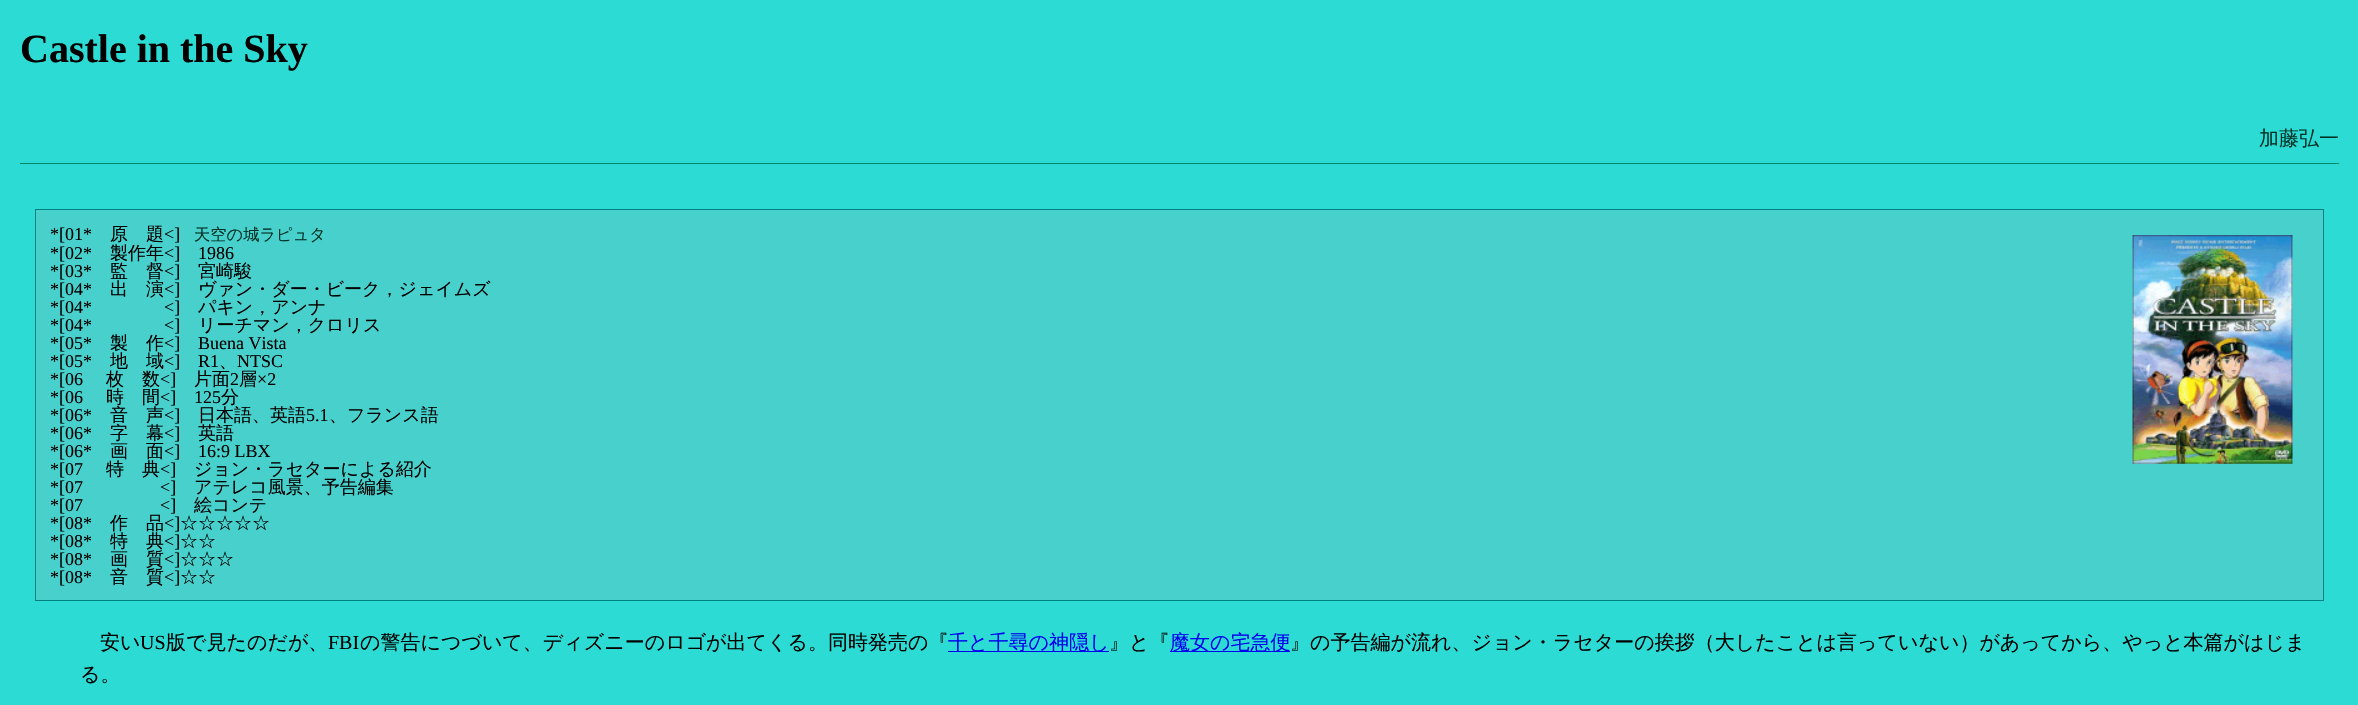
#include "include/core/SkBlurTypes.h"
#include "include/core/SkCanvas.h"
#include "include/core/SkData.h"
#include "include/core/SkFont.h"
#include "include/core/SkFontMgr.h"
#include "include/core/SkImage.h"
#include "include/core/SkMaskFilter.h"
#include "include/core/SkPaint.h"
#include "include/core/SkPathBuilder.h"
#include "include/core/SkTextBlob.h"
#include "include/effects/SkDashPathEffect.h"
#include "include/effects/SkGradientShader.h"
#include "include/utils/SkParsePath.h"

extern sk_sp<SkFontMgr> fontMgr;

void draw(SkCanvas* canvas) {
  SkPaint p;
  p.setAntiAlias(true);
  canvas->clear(SkColorSetRGB(44, 220, 212));
  p.setColor(SkColorSetRGB(8, 136, 104));
  canvas->drawRect(SkRect::MakeLTRB(20, 163, 2339, 164), p);
  p.setColor(SkColorSetRGB(72, 209, 204));
  canvas->drawRect(SkRect::MakeLTRB(35.5f, 209.5f, 2323.5f, 600.5f), p);
  p.setStyle(SkPaint::kStroke_Style);
  p.setStrokeWidth(1);
  p.setColor(SkColorSetRGB(0, 128, 128));
  canvas->drawRect(SkRect::MakeLTRB(35.5f, 209.5f, 2323.5f, 600.5f), p);
  canvas->drawImageRect(SkImages::DeferredFromEncodedData(SkData::MakeFromFileName("images/1.png")), SkRect::MakeLTRB(2132, 235, 2293, 464), SkSamplingOptions());
  p.setStyle(SkPaint::kFill_Style);
  p.setColor(SkColorSetRGB(0, 0, 238));
  canvas->drawRect(SkRect::MakeLTRB(948, 651, 1109, 652), p);
  canvas->drawRect(SkRect::MakeLTRB(1170, 651, 1290, 652), p);
  SkFont font1(fontMgr->matchFamilyStyle("Liberation Serif", SkFontStyle::Bold()), 40);
  font1.setSubpixel(true);
  p.setColor(SkColorSetRGB(2, 0, 0));
  canvas->drawString("Castle in the Sky", 20, 62, font1, p);
  SkFont font2(fontMgr->matchFamilyStyle("WenQuanYi Zen Hei", SkFontStyle(500, SkFontStyle::kNormal_Width, SkFontStyle::kUpright_Slant)), 20);
  font2.setSubpixel(true);
  p.setColor(SkColorSetRGB(3, 51, 39));
  canvas->drawString("加藤弘一", 2259, 145, font2, p);
  SkFont font3(fontMgr->matchFamilyStyle("Liberation Serif", SkFontStyle::Normal()), 18);
  font3.setSubpixel(true);
  p.setColor(SkColorSetRGB(2, 0, 0));
  canvas->drawString("*[01*", 50, 240, font3, p);
  SkFont font4(fontMgr->matchFamilyStyle("WenQuanYi Zen Hei", SkFontStyle(500, SkFontStyle::kNormal_Width, SkFontStyle::kUpright_Slant)), 18);
  font4.setSubpixel(true);
  canvas->drawString("原　題", 110, 240, font4, p);
  canvas->drawString("<]", 164, 240, font3, p);
  SkFont font5(fontMgr->matchFamilyStyle("WenQuanYi Zen Hei", SkFontStyle(500, SkFontStyle::kNormal_Width, SkFontStyle::kUpright_Slant)), 16.25f);
  font5.setSubpixel(true);
  p.setColor(SkColorSetRGB(3, 51, 39));
  canvas->drawString("天空の城ラピュタ", 194, 240, font5, p);
  p.setColor(SkColorSetRGB(2, 0, 0));
  canvas->drawString("*[02*", 50, 259, font3, p);
  canvas->drawString("製作年", 110, 259, font4, p);
  canvas->drawString("<]", 164, 259, font3, p);
  canvas->drawString("1986", 198, 259, font3, p);
  canvas->drawString("*[03*", 50, 277, font3, p);
  canvas->drawString("監　督", 110, 277, font4, p);
  canvas->drawString("<]", 164, 277, font3, p);
  canvas->drawString("宮崎駿", 198, 277, font4, p);
  canvas->drawString("*[04*", 50, 295, font3, p);
  canvas->drawString("出　演", 110, 295, font4, p);
  canvas->drawString("<]", 164, 295, font3, p);
  canvas->drawString("ヴァン・ダー・ビーク，ジェイムズ", 198, 295, font4, p);
  canvas->drawString("*[04*", 50, 313, font3, p);
  canvas->drawString("<]", 164, 313, font3, p);
  canvas->drawString("パキン，アンナ", 198, 313, font4, p);
  canvas->drawString("*[04*", 50, 331, font3, p);
  canvas->drawString("<]", 164, 331, font3, p);
  canvas->drawString("リーチマン，クロリス", 198, 331, font4, p);
  canvas->drawString("*[05*", 50, 349, font3, p);
  canvas->drawString("製　作", 110, 349, font4, p);
  canvas->drawString("<]", 164, 349, font3, p);
  canvas->drawString("Buena Vista", 198, 349, font3, p);
  canvas->drawString("*[05*", 50, 367, font3, p);
  canvas->drawString("地　域", 110, 367, font4, p);
  canvas->drawString("<]", 164, 367, font3, p);
  canvas->drawString("R1", 198, 367, font3, p);
  canvas->drawString("、", 219, 367, font4, p);
  canvas->drawString("NTSC", 237, 367, font3, p);
  canvas->drawString("*[06", 50, 385, font3, p);
  canvas->drawString("枚　数", 106, 385, font4, p);
  canvas->drawString("<]", 160, 385, font3, p);
  canvas->drawString("片面", 194, 385, font4, p);
  canvas->drawString("2", 230, 385, font3, p);
  canvas->drawString("層", 239, 385, font4, p);
  canvas->drawString("×2", 257, 385, font3, p);
  canvas->drawString("*[06", 50, 403, font3, p);
  canvas->drawString("時　間", 106, 403, font4, p);
  canvas->drawString("<]", 160, 403, font3, p);
  canvas->drawString("125", 194, 403, font3, p);
  canvas->drawString("分", 221, 403, font4, p);
  canvas->drawString("*[06*", 50, 421, font3, p);
  canvas->drawString("音　声", 110, 421, font4, p);
  canvas->drawString("<]", 164, 421, font3, p);
  canvas->drawString("日本語、英語", 198, 421, font4, p);
  canvas->drawString("5.1", 306, 421, font3, p);
  canvas->drawString("、フランス語", 329, 421, font4, p);
  canvas->drawString("*[06*", 50, 439, font3, p);
  canvas->drawString("字　幕", 110, 439, font4, p);
  canvas->drawString("<]", 164, 439, font3, p);
  canvas->drawString("英語", 198, 439, font4, p);
  canvas->drawString("*[06*", 50, 457, font3, p);
  canvas->drawString("画　面", 110, 457, font4, p);
  canvas->drawString("<]", 164, 457, font3, p);
  canvas->drawString("16:9 LBX", 198, 457, font3, p);
  canvas->drawString("*[07", 50, 475, font3, p);
  canvas->drawString("特　典", 106, 475, font4, p);
  canvas->drawString("<]", 160, 475, font3, p);
  canvas->drawString("ジョン・ラセターによる紹介", 194, 475, font4, p);
  canvas->drawString("*[07", 50, 493, font3, p);
  canvas->drawString("<]", 160, 493, font3, p);
  canvas->drawString("アテレコ風景、予告編集", 194, 493, font4, p);
  canvas->drawString("*[07", 50, 511, font3, p);
  canvas->drawString("<]", 160, 511, font3, p);
  canvas->drawString("絵コンテ", 194, 511, font4, p);
  canvas->drawString("*[08*", 50, 529, font3, p);
  canvas->drawString("作　品", 110, 529, font4, p);
  canvas->drawString("<]", 164, 529, font3, p);
  canvas->drawString("☆☆☆☆☆", 180, 529, font4, p);
  canvas->drawString("*[08*", 50, 547, font3, p);
  canvas->drawString("特　典", 110, 547, font4, p);
  canvas->drawString("<]", 164, 547, font3, p);
  canvas->drawString("☆☆", 180, 547, font4, p);
  canvas->drawString("*[08*", 50, 565, font3, p);
  canvas->drawString("画　質", 110, 565, font4, p);
  canvas->drawString("<]", 164, 565, font3, p);
  canvas->drawString("☆☆☆", 180, 565, font4, p);
  canvas->drawString("*[08*", 50, 583, font3, p);
  canvas->drawString("音　質", 110, 583, font4, p);
  canvas->drawString("<]", 164, 583, font3, p);
  canvas->drawString("☆☆", 180, 583, font4, p);
  canvas->drawString("安い", 100, 649, font2, p);
  SkFont font6(fontMgr->matchFamilyStyle("Liberation Serif", SkFontStyle::Normal()), 20);
  font6.setSubpixel(true);
  canvas->drawString("US", 140, 649, font6, p);
  canvas->drawString("版で見たのだが、", 166, 649, font2, p);
  canvas->drawString("FBI", 328, 649, font6, p);
  canvas->drawString("の警告につづいて、ディズニーのロゴが出てくる。同時発売の『", 360, 649, font2, p);
  p.setColor(SkColorSetRGB(0, 0, 238));
  canvas->drawString("千と千尋の神隠し", 948, 649, font2, p);
  p.setColor(SkColorSetRGB(2, 0, 0));
  canvas->drawString("』と『", 1109, 649, font2, p);
  p.setColor(SkColorSetRGB(0, 0, 238));
  canvas->drawString("魔女の宅急便", 1170, 649, font2, p);
  p.setColor(SkColorSetRGB(2, 0, 0));
  canvas->drawString("』の予告編が流れ、ジョン・ラセターの挨拶（大したことは言っていない）があってから、やっと本篇がはじま", 1290, 649, font2, p);
  canvas->drawString("る。", 80, 681, font2, p);
}
